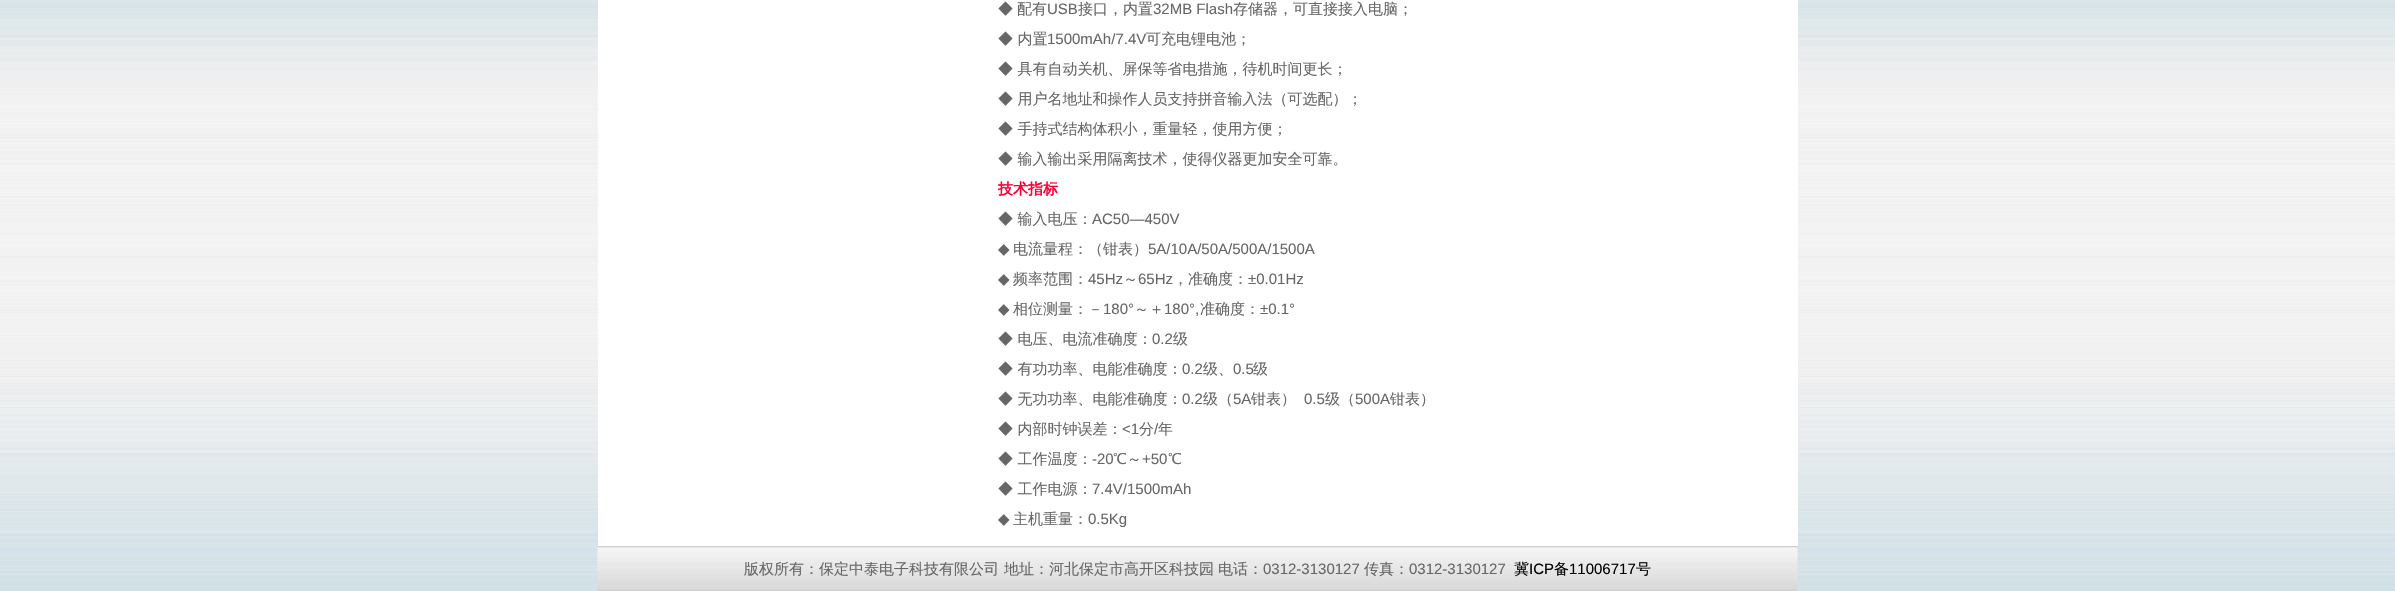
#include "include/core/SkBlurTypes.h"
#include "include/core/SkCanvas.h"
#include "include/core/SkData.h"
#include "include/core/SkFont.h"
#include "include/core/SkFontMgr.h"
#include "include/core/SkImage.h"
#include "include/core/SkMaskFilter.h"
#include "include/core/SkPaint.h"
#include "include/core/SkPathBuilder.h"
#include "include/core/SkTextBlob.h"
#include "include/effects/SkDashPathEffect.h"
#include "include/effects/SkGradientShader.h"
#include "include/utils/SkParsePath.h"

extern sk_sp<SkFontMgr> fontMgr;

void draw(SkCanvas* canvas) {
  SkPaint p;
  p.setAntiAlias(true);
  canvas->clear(SK_ColorWHITE);
  canvas->drawImageRect(SkImages::DeferredFromEncodedData(SkData::MakeFromFileName("images/1.png")), SkRect::MakeLTRB(0, 0, 2395, 591), SkSamplingOptions());
  p.setColor(SK_ColorWHITE);
  canvas->drawRect(SkRect::MakeLTRB(598, 0, 1798, 546), p);
  canvas->drawImageRect(SkImages::DeferredFromEncodedData(SkData::MakeFromFileName("images/2.png")), SkRect::MakeLTRB(597, 546, 1798, 591), SkSamplingOptions());
  SkFont font1(fontMgr->matchFamilyStyle("WenQuanYi Zen Hei", SkFontStyle(500, SkFontStyle::kNormal_Width, SkFontStyle::kUpright_Slant)), 15);
  font1.setSubpixel(true);
  p.setColor(SkColorSetRGB(102, 102, 102));
  canvas->drawString("◆", 998, 14, font1, p);
  canvas->drawString("配有", 1017, 14, font1, p);
  SkFont font2(fontMgr->matchFamilyStyle("Liberation Sans", SkFontStyle::Normal()), 15);
  font2.setSubpixel(true);
  canvas->drawString("USB", 1047, 14, font2, p);
  canvas->drawString("接口，内置", 1078, 14, font1, p);
  canvas->drawString("32MB Flash", 1153, 14, font2, p);
  canvas->drawString("存储器，可直接接入电脑；", 1233, 14, font1, p);
  canvas->drawString("◆ 内置", 998, 44, font1, p);
  canvas->drawString("1500mAh/7.4V", 1047, 44, font2, p);
  canvas->drawString("可充电锂电池；", 1146, 44, font1, p);
  canvas->drawString("◆ 具有自动关机、屏保等省电措施，待机时间更长；", 998, 74, font1, p);
  canvas->drawString("◆ 用户名地址和操作人员支持拼音输入法（可选配）；", 998, 104, font1, p);
  canvas->drawString("◆ 手持式结构体积小，重量轻，使用方便；", 998, 134, font1, p);
  canvas->drawString("◆ 输入输出采用隔离技术，使得仪器更加安全可靠。", 998, 164, font1, p);
  SkFont font3(fontMgr->matchFamilyStyle("WenQuanYi Zen Hei", SkFontStyle::Bold()), 15);
  font3.setSubpixel(true);
  p.setColor(SkColorSetRGB(255, 0, 51));
  canvas->drawString("技术指标", 998, 194, font3, p);
  p.setColor(SkColorSetRGB(102, 102, 102));
  canvas->drawString("◆ 输入电压：", 998, 224, font1, p);
  canvas->drawString("AC50—450V", 1092, 224, font2, p);
  SkFont font4(fontMgr->matchFamilyStyle("DejaVu Sans", SkFontStyle::Normal()), 15);
  font4.setSubpixel(true);
  canvas->drawString("◆", 998, 254, font4, p);
  canvas->drawString("电流量程：（钳表）", 1013, 254, font1, p);
  canvas->drawString("5A/10A/50A/500A/1500A", 1148, 254, font2, p);
  canvas->drawString("◆", 998, 284, font4, p);
  canvas->drawString("频率范围：", 1013, 284, font1, p);
  canvas->drawString("45Hz", 1088, 284, font2, p);
  canvas->drawString("～", 1123, 284, font1, p);
  canvas->drawString("65Hz", 1138, 284, font2, p);
  canvas->drawString("，准确度：", 1173, 284, font1, p);
  canvas->drawString("±0.01Hz", 1248, 284, font2, p);
  canvas->drawString("◆", 998, 314, font4, p);
  canvas->drawString("相位测量：－", 1013, 314, font1, p);
  canvas->drawString("180°", 1103, 314, font2, p);
  canvas->drawString("～＋", 1134, 314, font1, p);
  canvas->drawString("180°,", 1164, 314, font2, p);
  canvas->drawString("准确度：", 1200, 314, font1, p);
  canvas->drawString("±0.1°", 1260, 314, font2, p);
  canvas->drawString("◆ 电压、电流准确度：", 998, 344, font1, p);
  canvas->drawString("0.2", 1152, 344, font2, p);
  canvas->drawString("级", 1173, 344, font1, p);
  canvas->drawString("◆ 有功功率、电能准确度：", 998, 374, font1, p);
  canvas->drawString("0.2", 1182, 374, font2, p);
  canvas->drawString("级、", 1203, 374, font1, p);
  canvas->drawString("0.5", 1233, 374, font2, p);
  canvas->drawString("级", 1253, 374, font1, p);
  canvas->drawString("◆ 无功功率、电能准确度：", 998, 404, font1, p);
  canvas->drawString("0.2", 1182, 404, font2, p);
  canvas->drawString("级（", 1203, 404, font1, p);
  canvas->drawString("5A", 1233, 404, font2, p);
  canvas->drawString("钳表）", 1251, 404, font1, p);
  canvas->drawString("0.5", 1304, 404, font2, p);
  canvas->drawString("级（", 1325, 404, font1, p);
  canvas->drawString("500A", 1355, 404, font2, p);
  canvas->drawString("钳表）", 1390, 404, font1, p);
  canvas->drawString("◆ 内部时钟误差：", 998, 434, font1, p);
  canvas->drawString("<1", 1122, 434, font2, p);
  canvas->drawString("分", 1139, 434, font1, p);
  canvas->drawString("/", 1154, 434, font2, p);
  canvas->drawString("年", 1158, 434, font1, p);
  canvas->drawString("◆ 工作温度：", 998, 464, font1, p);
  canvas->drawString("-20", 1092, 464, font2, p);
  canvas->drawString("℃～", 1113, 464, font1, p);
  canvas->drawString("+50", 1142, 464, font2, p);
  canvas->drawString("℃", 1168, 464, font1, p);
  canvas->drawString("◆ 工作电源：", 998, 494, font1, p);
  canvas->drawString("7.4V/1500mAh", 1092, 494, font2, p);
  canvas->drawString("◆", 998, 524, font4, p);
  canvas->drawString("主机重量：", 1013, 524, font1, p);
  canvas->drawString("0.5Kg", 1088, 524, font2, p);
  canvas->drawString("版权所有：保定中泰电子科技有限公司", 744, 574, font1, p);
  canvas->drawString("地址：河北保定市高开区科技园", 1004, 574, font1, p);
  canvas->drawString("电话：", 1218, 574, font1, p);
  canvas->drawString("0312-3130127", 1263, 574, font2, p);
  canvas->drawString("传真：", 1364, 574, font1, p);
  canvas->drawString("0312-3130127", 1409, 574, font2, p);
  p.setColor(SK_ColorBLACK);
  canvas->drawString("冀", 1514, 574, font1, p);
  canvas->drawString("ICP", 1529, 574, font2, p);
  canvas->drawString("备", 1554, 574, font1, p);
  canvas->drawString("11006717", 1569, 574, font2, p);
  canvas->drawString("号", 1636, 574, font1, p);
}
